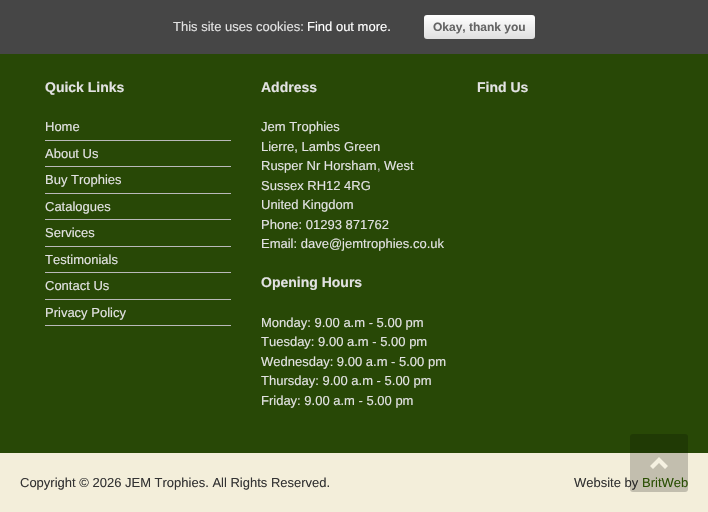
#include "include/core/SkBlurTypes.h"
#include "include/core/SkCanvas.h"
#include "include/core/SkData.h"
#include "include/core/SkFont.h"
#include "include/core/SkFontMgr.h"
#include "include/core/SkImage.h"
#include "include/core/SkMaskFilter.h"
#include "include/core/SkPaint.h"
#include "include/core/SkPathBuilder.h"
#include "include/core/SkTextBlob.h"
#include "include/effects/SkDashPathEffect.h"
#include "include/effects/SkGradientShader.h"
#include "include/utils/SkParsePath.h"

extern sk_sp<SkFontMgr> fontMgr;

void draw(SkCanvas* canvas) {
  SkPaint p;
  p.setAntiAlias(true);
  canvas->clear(SkColorSetRGB(40, 72, 6));
  p.setColor(SkColorSetRGB(70, 70, 70));
  canvas->drawRect(SkRect::MakeLTRB(0, 0, 708, 54), p);
  {
    const SkColor colors[] = {SkColorSetRGB(223, 223, 223), SK_ColorWHITE};
    const float stops[] = {0, 1};
    const SkPoint ends[] = {{424, 39}, {424, 15}};
    p.setShader(SkGradientShader::MakeLinear(ends, colors, stops, 2, SkTileMode::kClamp));
    p.setAlpha(255);
  }
  canvas->drawRoundRect(SkRect::MakeLTRB(424, 15, 535, 39), 3, 3, p);
  p.setShader(nullptr);
  p.setColor(SkColorSetRGB(185, 185, 185));
  canvas->drawRect(SkRect::MakeLTRB(45, 140, 231, 141), p);
  canvas->drawRect(SkRect::MakeLTRB(45, 166, 231, 167), p);
  canvas->drawRect(SkRect::MakeLTRB(45, 193, 231, 194), p);
  canvas->drawRect(SkRect::MakeLTRB(45, 219, 231, 220), p);
  canvas->drawRect(SkRect::MakeLTRB(45, 246, 231, 247), p);
  canvas->drawRect(SkRect::MakeLTRB(45, 272, 231, 273), p);
  canvas->drawRect(SkRect::MakeLTRB(45, 299, 231, 300), p);
  canvas->drawRect(SkRect::MakeLTRB(45, 325, 231, 326), p);
  p.setColor(SkColorSetRGB(243, 238, 218));
  canvas->drawRect(SkRect::MakeLTRB(0, 453, 708, 512), p);
  SkFont font1(fontMgr->matchFamilyStyle("Liberation Sans", SkFontStyle::Normal()), 13);
  font1.setSubpixel(true);
  p.setColor(SkColorSetRGB(226, 226, 226));
  canvas->drawString("This site uses cookies:", 173, 31, font1, p);
  p.setColor(SK_ColorWHITE);
  canvas->drawString("Find out more.", 307, 31, font1, p);
  SkFont font2(fontMgr->matchFamilyStyle("Liberation Sans", SkFontStyle::Bold()), 12);
  font2.setSubpixel(true);
  p.setColor(SkColorSetRGB(100, 100, 100));
  canvas->drawString("Okay, thank you", 433, 31, font2, p);
  SkFont font3(fontMgr->matchFamilyStyle("Liberation Sans", SkFontStyle::Bold()), 14);
  font3.setSubpixel(true);
  p.setColor(SkColorSetRGB(226, 226, 226));
  canvas->drawString("Quick Links", 45, 92, font3, p);
  canvas->drawString("Home", 45, 131, font1, p);
  canvas->drawString("About Us", 45, 158, font1, p);
  canvas->drawString("Buy Trophies", 45, 184, font1, p);
  canvas->drawString("Catalogues", 45, 211, font1, p);
  canvas->drawString("Services", 45, 237, font1, p);
  canvas->drawString("Testimonials", 45, 264, font1, p);
  canvas->drawString("Contact Us", 45, 290, font1, p);
  canvas->drawString("Privacy Policy", 45, 317, font1, p);
  canvas->drawString("Address", 261, 92, font3, p);
  canvas->drawString("Jem Trophies", 261, 131, font1, p);
  canvas->drawString("Lierre, Lambs Green", 261, 151, font1, p);
  canvas->drawString("Rusper Nr Horsham", 261, 170, font1, p);
  p.setColor(SkColorSetRGB(185, 185, 185));
  canvas->drawString(",", 377, 170, font1, p);
  p.setColor(SkColorSetRGB(226, 226, 226));
  canvas->drawString("West", 384, 170, font1, p);
  canvas->drawString("Sussex RH12 4RG", 261, 190, font1, p);
  canvas->drawString("United Kingdom", 261, 209, font1, p);
  canvas->drawString("Phone: 01293 871762", 261, 229, font1, p);
  canvas->drawString("Email: dave@jemtrophies.co.uk", 261, 248, font1, p);
  canvas->drawString("Opening Hours", 261, 287, font3, p);
  canvas->drawString("Monday: 9.00 a.m - 5.00 pm", 261, 327, font1, p);
  canvas->drawString("Tuesday: 9.00 a.m - 5.00 pm", 261, 346, font1, p);
  canvas->drawString("Wednesday: 9.00 a.m - 5.00 pm", 261, 366, font1, p);
  canvas->drawString("Thursday: 9.00 a.m - 5.00 pm", 261, 385, font1, p);
  canvas->drawString("Friday: 9.00 a.m - 5.00 pm", 261, 405, font1, p);
  canvas->drawString("Find Us", 477, 92, font3, p);
  p.setColor(SkColorSetRGB(51, 51, 51));
  canvas->drawString("Copyright © 2026 JEM Trophies. All Rights Reserved.", 20, 487, font1, p);
  canvas->drawString("Website by", 574, 487, font1, p);
  p.setColor(SkColorSetRGB(51, 98, 2));
  canvas->drawString("BritWeb", 642, 487, font1, p);
  p.setColor(SkColorSetARGB(51, 0, 0, 0));
  canvas->drawRoundRect(SkRect::MakeLTRB(630, 434, 688, 492), 3, 3, p);
  p.setColor(SkColorSetRGB(245, 241, 225));
  canvas->drawPath(SkPathBuilder().moveTo(668, 466).lineTo(659, 457).lineTo(650, 466).lineTo(653, 469).lineTo(659, 463).lineTo(665, 469).close().detach(), p);
}
